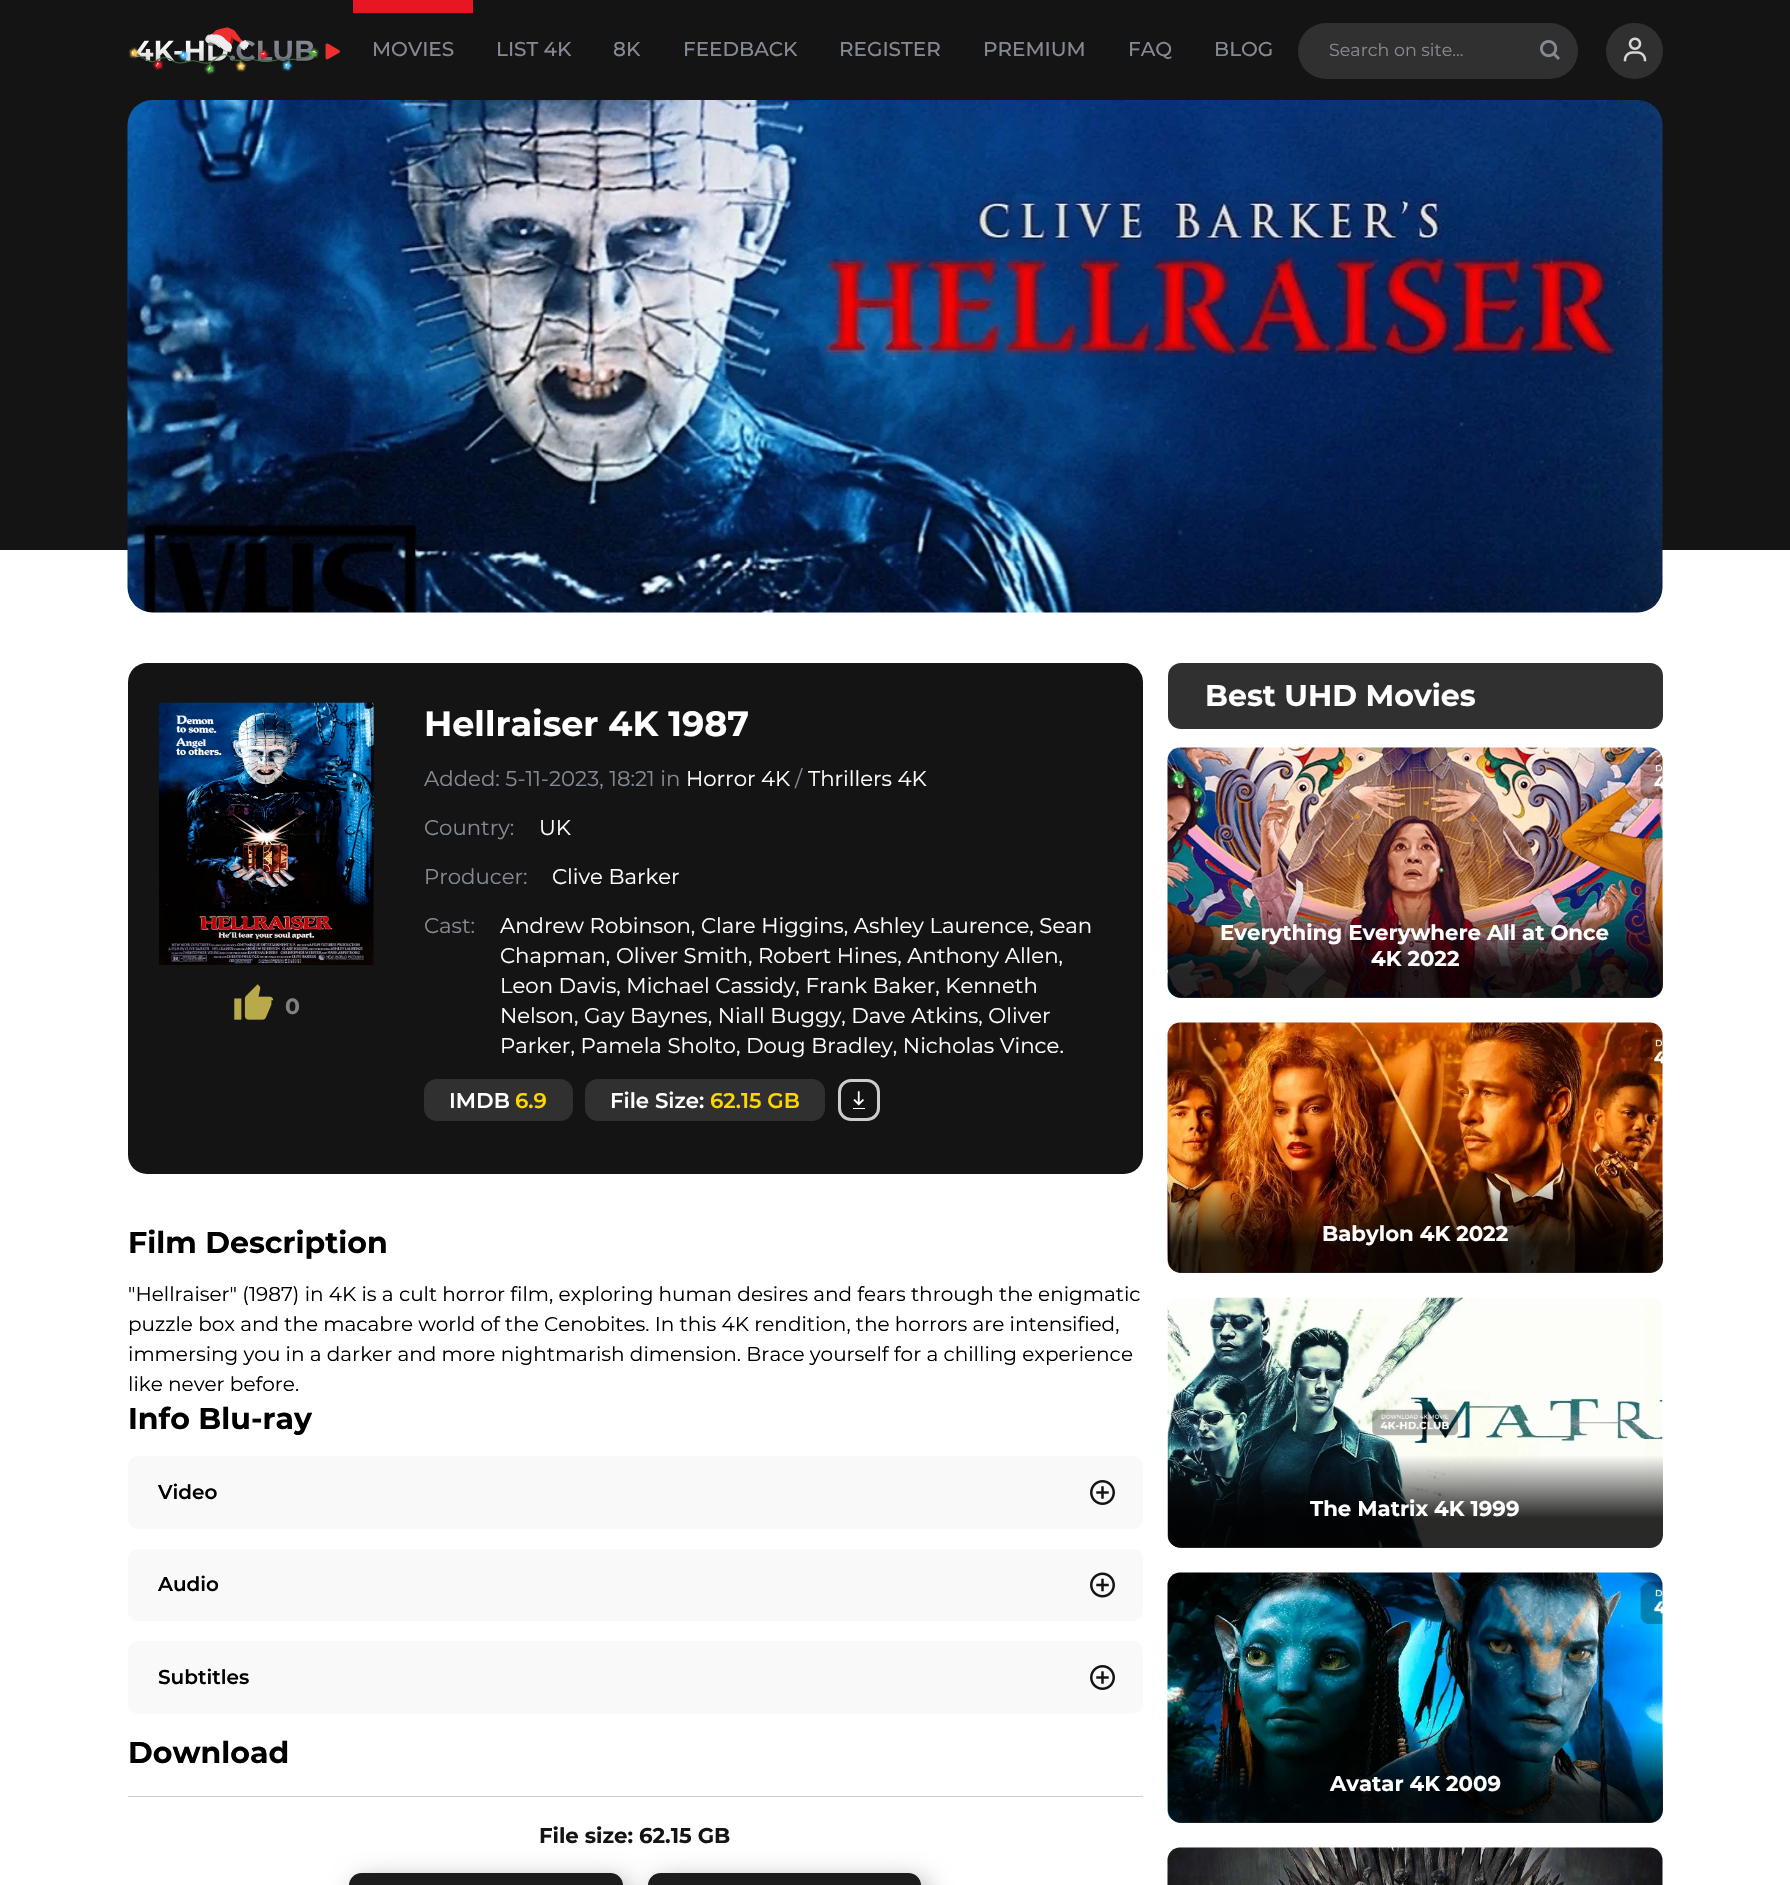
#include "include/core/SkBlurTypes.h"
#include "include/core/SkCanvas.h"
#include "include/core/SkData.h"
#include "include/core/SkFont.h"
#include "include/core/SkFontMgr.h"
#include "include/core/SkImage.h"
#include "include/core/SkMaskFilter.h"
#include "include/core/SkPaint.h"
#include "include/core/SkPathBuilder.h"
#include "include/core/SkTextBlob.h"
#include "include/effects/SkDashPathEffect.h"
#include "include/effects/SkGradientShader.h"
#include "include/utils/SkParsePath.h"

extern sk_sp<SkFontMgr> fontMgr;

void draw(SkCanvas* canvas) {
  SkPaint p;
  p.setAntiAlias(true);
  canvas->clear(SK_ColorWHITE);
  p.setColor(SkColorSetRGB(20, 20, 20));
  canvas->drawRect(SkRect::MakeLTRB(0, 0, 1790, 550), p);
  canvas->drawImageRect(SkImages::DeferredFromEncodedData(SkData::MakeFromFileName("images/1.png")), SkRect::MakeLTRB(128, 27, 340, 75), SkSamplingOptions());
  p.setColor(SkColorSetRGB(232, 21, 34));
  canvas->drawRect(SkRect::MakeLTRB(353, 0, 473, 13), p);
  p.setColor(SkColorSetRGB(48, 48, 48));
  canvas->drawRoundRect(SkRect::MakeLTRB(1298, 23, 1578, 79), 28, 28, p);
  canvas->drawImageRect(SkImages::DeferredFromEncodedData(SkData::MakeFromFileName("images/2.png")), SkRect::MakeLTRB(1540, 40, 1560, 60), SkSamplingOptions());
  canvas->drawRoundRect(SkRect::MakeLTRB(1606, 23, 1663, 79), 28, 28, p);
  canvas->drawImageRect(SkImages::DeferredFromEncodedData(SkData::MakeFromFileName("images/3.png")), SkRect::MakeLTRB(1623, 37, 1647, 62), SkSamplingOptions());
  canvas->drawImageRect(SkImages::DeferredFromEncodedData(SkData::MakeFromFileName("images/4.png")), SkRect::MakeLTRB(127, 100, 1663, 613), SkSamplingOptions());
  p.setColor(SkColorSetRGB(20, 20, 20));
  canvas->drawRoundRect(SkRect::MakeLTRB(128, 663, 1143, 1174), 19, 19, p);
  canvas->drawImageRect(SkImages::DeferredFromEncodedData(SkData::MakeFromFileName("images/5.png")), SkRect::MakeLTRB(158, 702, 374, 965), SkSamplingOptions());
  canvas->drawImageRect(SkImages::DeferredFromEncodedData(SkData::MakeFromFileName("images/6.png")), SkRect::MakeLTRB(234, 984, 274, 1020), SkSamplingOptions());
  p.setColor(SkColorSetRGB(48, 48, 48));
  canvas->drawRoundRect(SkRect::MakeLTRB(424, 1079, 573, 1121), 13, 13, p);
  canvas->drawRoundRect(SkRect::MakeLTRB(585, 1079, 825, 1121), 13, 13, p);
  canvas->drawImageRect(SkImages::DeferredFromEncodedData(SkData::MakeFromFileName("images/7.png")), SkRect::MakeLTRB(853, 1091, 865, 1109), SkSamplingOptions());
  p.setStyle(SkPaint::kStroke_Style);
  p.setStrokeWidth(3);
  p.setColor(SkColorSetRGB(204, 204, 204));
  canvas->drawRoundRect(SkRect::MakeLTRB(839.5f, 1080.5f, 878.5f, 1119.5f), 11.5f, 11.5f, p);
  p.setStyle(SkPaint::kFill_Style);
  canvas->drawRect(SkRect::MakeLTRB(128, 1796, 1143, 1797), p);
  p.setColor(SkColorSetRGB(249, 249, 249));
  canvas->drawRoundRect(SkRect::MakeLTRB(128, 1456, 1143, 1529), 10, 10, p);
  canvas->drawImageRect(SkImages::DeferredFromEncodedData(SkData::MakeFromFileName("images/8.png")), SkRect::MakeLTRB(1090, 1480, 1115, 1505), SkSamplingOptions());
  canvas->drawRoundRect(SkRect::MakeLTRB(128, 1549, 1143, 1621), 10, 10, p);
  canvas->drawImageRect(SkImages::DeferredFromEncodedData(SkData::MakeFromFileName("images/9.png")), SkRect::MakeLTRB(1090, 1572, 1115, 1598), SkSamplingOptions());
  canvas->drawRoundRect(SkRect::MakeLTRB(128, 1641, 1143, 1714), 10, 10, p);
  canvas->drawImageRect(SkImages::DeferredFromEncodedData(SkData::MakeFromFileName("images/8.png")), SkRect::MakeLTRB(1090, 1665, 1115, 1690), SkSamplingOptions());
  p.setColor(SkColorSetARGB(77, 0, 0, 0));
  p.setMaskFilter(SkMaskFilter::MakeBlur(kNormal_SkBlurStyle, 12.5f));
  canvas->drawRoundRect(SkRect::MakeLTRB(355, 1879, 629, 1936), 13, 13, p);
  p.setMaskFilter(nullptr);
  p.setColor(SkColorSetRGB(29, 29, 29));
  canvas->drawRoundRect(SkRect::MakeLTRB(349, 1873, 623, 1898), 13, 13, p);
  p.setColor(SkColorSetARGB(77, 0, 0, 0));
  p.setMaskFilter(SkMaskFilter::MakeBlur(kNormal_SkBlurStyle, 12.5f));
  canvas->drawRoundRect(SkRect::MakeLTRB(654, 1879, 928, 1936), 13, 13, p);
  p.setMaskFilter(nullptr);
  p.setColor(SkColorSetRGB(29, 29, 29));
  canvas->drawRoundRect(SkRect::MakeLTRB(648, 1873, 921, 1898), 13, 13, p);
  p.setColor(SkColorSetRGB(48, 48, 48));
  canvas->drawRoundRect(SkRect::MakeLTRB(1168, 663, 1663, 729), 13, 13, p);
  canvas->drawImageRect(SkImages::DeferredFromEncodedData(SkData::MakeFromFileName("images/10.png")), SkRect::MakeLTRB(1167, 747, 1663, 998), SkSamplingOptions());
  {
    const SkColor colors[] = {SkColorSetARGB(0, 0, 0, 0), SkColorSetARGB(214, 0, 0, 0)};
    const float stops[] = {0, 0.68f};
    const SkPoint ends[] = {{1415, 905}, {1415, 998}};
    p.setShader(SkGradientShader::MakeLinear(ends, colors, stops, 2, SkTileMode::kClamp));
    p.setAlpha(255);
  }
  canvas->drawPath(SkPathBuilder().moveTo(1168, 905).lineTo(1663, 905).lineTo(1663, 985).cubicTo(1663, 992, 1657, 998, 1650, 998).lineTo(1181, 998).cubicTo(1174, 998, 1168, 992, 1168, 985).close().detach(), p);
  canvas->drawImageRect(SkImages::DeferredFromEncodedData(SkData::MakeFromFileName("images/11.png")), SkRect::MakeLTRB(1167, 1022, 1663, 1273), SkSamplingOptions());
  {
    const SkColor colors[] = {SkColorSetARGB(0, 0, 0, 0), SkColorSetARGB(214, 0, 0, 0)};
    const float stops[] = {0, 0.68f};
    const SkPoint ends[] = {{1415, 1180}, {1415, 1273}};
    p.setShader(SkGradientShader::MakeLinear(ends, colors, stops, 2, SkTileMode::kClamp));
    p.setAlpha(255);
  }
  canvas->drawPath(SkPathBuilder().moveTo(1168, 1180).lineTo(1663, 1180).lineTo(1663, 1260).cubicTo(1663, 1267, 1657, 1273, 1650, 1273).lineTo(1181, 1273).cubicTo(1174, 1273, 1168, 1267, 1168, 1260).close().detach(), p);
  canvas->drawImageRect(SkImages::DeferredFromEncodedData(SkData::MakeFromFileName("images/12.png")), SkRect::MakeLTRB(1167, 1297, 1663, 1548), SkSamplingOptions());
  {
    const SkColor colors[] = {SkColorSetARGB(0, 0, 0, 0), SkColorSetARGB(214, 0, 0, 0)};
    const float stops[] = {0, 0.68f};
    const SkPoint ends[] = {{1415, 1455}, {1415, 1548}};
    p.setShader(SkGradientShader::MakeLinear(ends, colors, stops, 2, SkTileMode::kClamp));
    p.setAlpha(255);
  }
  canvas->drawPath(SkPathBuilder().moveTo(1168, 1455).lineTo(1663, 1455).lineTo(1663, 1535).cubicTo(1663, 1542, 1657, 1548, 1650, 1548).lineTo(1181, 1548).cubicTo(1174, 1548, 1168, 1542, 1168, 1535).close().detach(), p);
  canvas->drawImageRect(SkImages::DeferredFromEncodedData(SkData::MakeFromFileName("images/13.png")), SkRect::MakeLTRB(1167, 1572, 1663, 1823), SkSamplingOptions());
  {
    const SkColor colors[] = {SkColorSetARGB(0, 0, 0, 0), SkColorSetARGB(214, 0, 0, 0)};
    const float stops[] = {0, 0.68f};
    const SkPoint ends[] = {{1415, 1730}, {1415, 1823}};
    p.setShader(SkGradientShader::MakeLinear(ends, colors, stops, 2, SkTileMode::kClamp));
    p.setAlpha(255);
  }
  canvas->drawPath(SkPathBuilder().moveTo(1168, 1730).lineTo(1663, 1730).lineTo(1663, 1810).cubicTo(1663, 1817, 1657, 1823, 1650, 1823).lineTo(1181, 1823).cubicTo(1174, 1823, 1168, 1817, 1168, 1810).close().detach(), p);
  canvas->drawImageRect(SkImages::DeferredFromEncodedData(SkData::MakeFromFileName("images/14.png")), SkRect::MakeLTRB(1167, 1847, 1663, 1885), SkSamplingOptions());
  SkFont font1(fontMgr->matchFamilyStyle("Montserrat", SkFontStyle(500, SkFontStyle::kNormal_Width, SkFontStyle::kUpright_Slant)), 20);
  font1.setSubpixel(true);
  p.setShader(nullptr);
  p.setColor(SkColorSetRGB(132, 138, 148));
  canvas->drawString("MOVIES", 372, 56, font1, p);
  canvas->drawString("LIST 4K", 496, 56, font1, p);
  canvas->drawString("8K", 613, 56, font1, p);
  canvas->drawString("FEEDBACK", 683, 56, font1, p);
  canvas->drawString("REGISTER", 839, 56, font1, p);
  canvas->drawString("PREMIUM", 983, 56, font1, p);
  canvas->drawString("FAQ", 1128, 56, font1, p);
  canvas->drawString("BLOG", 1214, 56, font1, p);
  SkFont font2(fontMgr->matchFamilyStyle("Montserrat", SkFontStyle::Normal()), 17.5f);
  font2.setSubpixel(true);
  canvas->drawString("Search on site...", 1329, 56, font2, p);
  SkFont font3(fontMgr->matchFamilyStyle("Montserrat", SkFontStyle::Bold()), 22);
  font3.setSubpixel(true);
  p.setColor(SkColorSetRGB(129, 129, 129));
  canvas->drawString("0", 285, 1014, font3, p);
  SkFont font4(fontMgr->matchFamilyStyle("Montserrat", SkFontStyle::Bold()), 35);
  font4.setSubpixel(true);
  p.setColor(SK_ColorWHITE);
  canvas->drawString("Hellraiser 4K 1987", 424, 736, font4, p);
  SkFont font5(fontMgr->matchFamilyStyle("Montserrat", SkFontStyle::Normal()), 21.25f);
  font5.setSubpixel(true);
  p.setColor(SkColorSetRGB(132, 138, 148));
  canvas->drawString("Added: 5-11-2023, 18:21 in", 424, 786, font5, p);
  p.setColor(SK_ColorWHITE);
  canvas->drawString("Horror 4K", 686, 786, font5, p);
  p.setColor(SkColorSetRGB(132, 138, 148));
  canvas->drawString("/", 795, 786, font5, p);
  p.setColor(SK_ColorWHITE);
  canvas->drawString("Thrillers 4K", 808, 786, font5, p);
  p.setColor(SkColorSetRGB(132, 138, 148));
  canvas->drawString("Country:", 424, 835, font5, p);
  p.setColor(SK_ColorWHITE);
  canvas->drawString("UK", 539, 835, font5, p);
  p.setColor(SkColorSetRGB(132, 138, 148));
  canvas->drawString("Producer:", 424, 884, font5, p);
  p.setColor(SK_ColorWHITE);
  canvas->drawString("Clive Barker", 552, 884, font5, p);
  p.setColor(SkColorSetRGB(132, 138, 148));
  canvas->drawString("Cast:", 424, 933, font5, p);
  p.setColor(SK_ColorWHITE);
  canvas->drawString("Andrew Robinson, Clare Higgins, Ashley Laurence, Sean", 500, 933, font5, p);
  canvas->drawString("Chapman, Oliver Smith, Robert Hines, Anthony Allen,", 500, 963, font5, p);
  canvas->drawString("Leon Davis, Michael Cassidy, Frank Baker, Kenneth", 500, 993, font5, p);
  canvas->drawString("Nelson, Gay Baynes, Niall Buggy, Dave Atkins, Oliver", 500, 1023, font5, p);
  canvas->drawString("Parker, Pamela Sholto, Doug Bradley, Nicholas Vince.", 500, 1053, font5, p);
  SkFont font6(fontMgr->matchFamilyStyle("Montserrat", SkFontStyle(600, SkFontStyle::kNormal_Width, SkFontStyle::kUpright_Slant)), 21.25f);
  font6.setSubpixel(true);
  canvas->drawString("IMDB", 449, 1108, font6, p);
  p.setColor(SkColorSetRGB(255, 214, 0));
  canvas->drawString("6.9", 515, 1108, font6, p);
  p.setColor(SK_ColorWHITE);
  canvas->drawString("File Size:", 610, 1108, font6, p);
  p.setColor(SkColorSetRGB(255, 214, 0));
  canvas->drawString("62.15 GB", 710, 1108, font6, p);
  SkFont font7(fontMgr->matchFamilyStyle("Montserrat", SkFontStyle::Bold()), 30);
  font7.setSubpixel(true);
  p.setColor(SK_ColorBLACK);
  canvas->drawString("Film Description", 128, 1253, font7, p);
  SkFont font8(fontMgr->matchFamilyStyle("Montserrat", SkFontStyle::Normal()), 20);
  font8.setSubpixel(true);
  canvas->drawString("\"Hellraiser\" (1987) in 4K is a cult horror film, exploring human desires and fears through the enigmatic", 128, 1301, font8, p);
  canvas->drawString("puzzle box and the macabre world of the Cenobites. In this 4K rendition, the horrors are intensified,", 128, 1331, font8, p);
  canvas->drawString("immersing you in a darker and more nightmarish dimension. Brace yourself for a chilling experience", 128, 1361, font8, p);
  canvas->drawString("like never before.", 128, 1391, font8, p);
  canvas->drawString("Info Blu-ray", 128, 1429, font7, p);
  SkFont font9(fontMgr->matchFamilyStyle("Montserrat", SkFontStyle(600, SkFontStyle::kNormal_Width, SkFontStyle::kUpright_Slant)), 20);
  font9.setSubpixel(true);
  canvas->drawString("Video", 158, 1499, font9, p);
  canvas->drawString("Audio", 158, 1591, font9, p);
  canvas->drawString("Subtitles", 158, 1684, font9, p);
  canvas->drawString("Download", 128, 1763, font7, p);
  SkFont font10(fontMgr->matchFamilyStyle("Montserrat", SkFontStyle::Bold()), 21.25f);
  font10.setSubpixel(true);
  p.setColor(SkColorSetRGB(20, 20, 20));
  canvas->drawString("File size: 62.15 GB", 539, 1843, font10, p);
  p.setColor(SK_ColorWHITE);
  canvas->drawString("Best UHD Movies", 1205, 706, font7, p);
  canvas->drawString("Everything Everywhere All at Once", 1220, 940, font10, p);
  canvas->drawString("4K 2022", 1371, 966, font10, p);
  canvas->drawString("Babylon 4K 2022", 1322, 1241, font10, p);
  canvas->drawString("The Matrix 4K 1999", 1310, 1516, font10, p);
  canvas->drawString("Avatar 4K 2009", 1330, 1791, font10, p);
}
